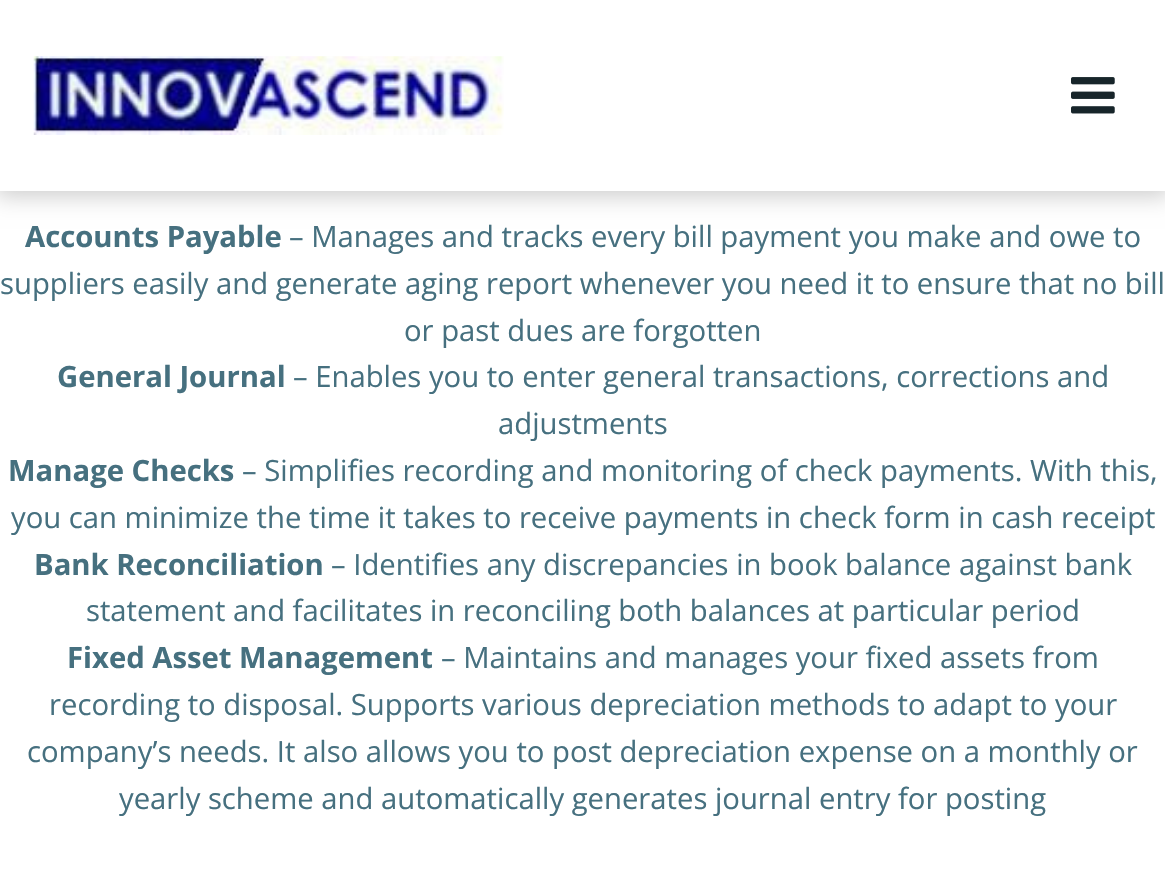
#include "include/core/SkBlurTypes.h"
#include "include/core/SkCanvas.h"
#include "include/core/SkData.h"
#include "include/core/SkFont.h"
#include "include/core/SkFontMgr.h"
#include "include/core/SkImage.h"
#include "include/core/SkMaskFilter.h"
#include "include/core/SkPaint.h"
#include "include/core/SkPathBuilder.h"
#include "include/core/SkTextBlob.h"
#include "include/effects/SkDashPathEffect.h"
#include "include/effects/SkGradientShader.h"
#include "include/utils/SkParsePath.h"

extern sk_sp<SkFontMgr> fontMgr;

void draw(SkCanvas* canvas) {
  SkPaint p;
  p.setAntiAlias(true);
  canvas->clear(SK_ColorWHITE);
  p.setColor(SkColorSetARGB(51, 0, 0, 0));
  p.setMaskFilter(SkMaskFilter::MakeBlur(kNormal_SkBlurStyle, 11));
  canvas->drawRect(SkRect::MakeLTRB(-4, -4, 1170, 196), p);
  p.setMaskFilter(nullptr);
  p.setColor(SK_ColorWHITE);
  canvas->drawRect(SkRect::MakeLTRB(0, 0, 1165, 191), p);
  canvas->drawImageRect(SkImages::DeferredFromEncodedData(SkData::MakeFromFileName("images/1.png")), SkRect::MakeLTRB(33, 56, 504, 135), SkSamplingOptions());
  canvas->drawImageRect(SkImages::DeferredFromEncodedData(SkData::MakeFromFileName("images/2.png")), SkRect::MakeLTRB(1071, 77, 1115, 114), SkSamplingOptions());
  SkFont font1(fontMgr->matchFamilyStyle("Open Sans", SkFontStyle::Bold()), 29.25f);
  font1.setSubpixel(true);
  p.setColor(SkColorSetRGB(70, 112, 127));
  canvas->drawString("Accounts Payable", 25, 247, font1, p);
  SkFont font2(fontMgr->matchFamilyStyle("Open Sans", SkFontStyle::Normal()), 29.25f);
  font2.setSubpixel(true);
  canvas->drawString("– Manages and tracks every bill payment you make and owe to", 289, 247, font2, p);
  canvas->drawString("suppliers easily and generate aging report whenever you need it to ensure that no bill", 0, 294, font2, p);
  canvas->drawString("or past dues are forgotten", 404, 341, font2, p);
  canvas->drawString("General Journal", 57, 387, font1, p);
  canvas->drawString("– Enables you to enter general transactions, corrections and", 293, 387, font2, p);
  canvas->drawString("adjustments", 498, 434, font2, p);
  canvas->drawString("Manage Checks", 8, 481, font1, p);
  canvas->drawString("– Simplifies recording and monitoring of check payments. With this,", 242, 481, font2, p);
  canvas->drawString("you can minimize the time it takes to receive payments in check form in cash receipt", 11, 528, font2, p);
  canvas->drawString("Bank Reconciliation", 34, 575, font1, p);
  canvas->drawString("– Identifies any discrepancies in book balance against bank", 331, 575, font2, p);
  canvas->drawString("statement and facilitates in reconciling both balances at particular period", 86, 621, font2, p);
  canvas->drawString("Fixed Asset Management", 67, 668, font1, p);
  canvas->drawString("– Maintains and manages your fixed assets from", 441, 668, font2, p);
  canvas->drawString("recording to disposal. Supports various depreciation methods to adapt to your", 49, 715, font2, p);
  canvas->drawString("company’s needs. It also allows you to post depreciation expense on a monthly or", 27, 762, font2, p);
  canvas->drawString("yearly scheme and automatically generates journal entry for posting", 119, 809, font2, p);
}
